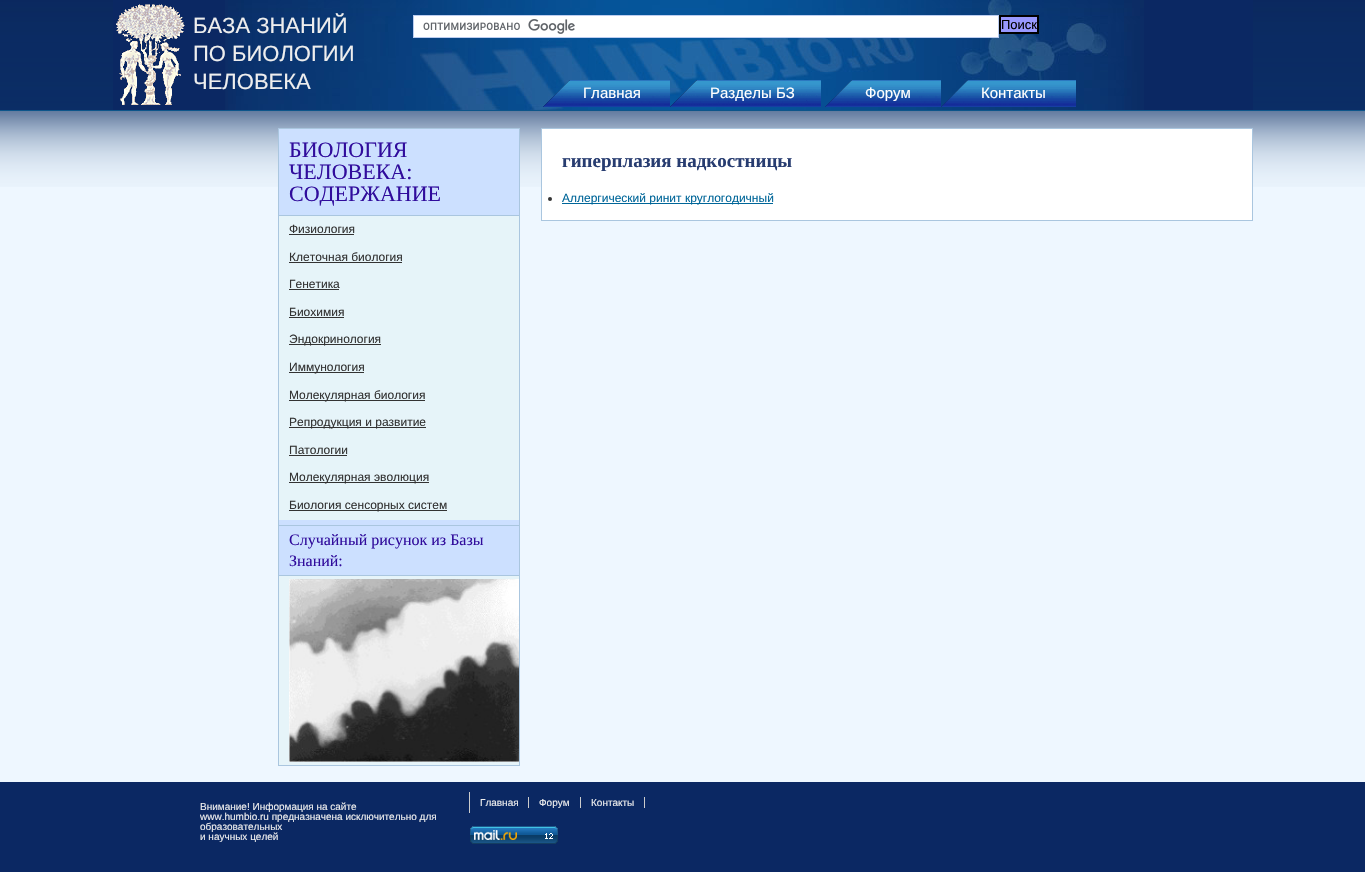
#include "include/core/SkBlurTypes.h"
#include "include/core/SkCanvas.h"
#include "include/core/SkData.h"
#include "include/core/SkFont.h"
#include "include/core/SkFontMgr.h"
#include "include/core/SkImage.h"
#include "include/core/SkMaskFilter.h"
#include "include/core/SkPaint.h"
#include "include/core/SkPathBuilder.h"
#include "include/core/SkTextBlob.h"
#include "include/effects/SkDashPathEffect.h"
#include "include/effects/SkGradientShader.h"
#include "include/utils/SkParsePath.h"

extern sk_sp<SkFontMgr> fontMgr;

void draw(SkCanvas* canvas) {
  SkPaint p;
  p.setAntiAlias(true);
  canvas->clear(SkColorSetRGB(238, 247, 255));
  canvas->drawImageRect(SkImages::DeferredFromEncodedData(SkData::MakeFromFileName("images/1.png")), SkRect::MakeLTRB(0, 0, 1365, 187), SkSamplingOptions());
  p.setColor(SkColorSetRGB(11, 40, 99));
  canvas->drawRect(SkRect::MakeLTRB(113, 0, 1253, 110), p);
  canvas->drawImageRect(SkImages::DeferredFromEncodedData(SkData::MakeFromFileName("images/2.png")), SkRect::MakeLTRB(225, 0, 1144, 110), SkSamplingOptions());
  canvas->drawImageRect(SkImages::DeferredFromEncodedData(SkData::MakeFromFileName("images/3.png")), SkRect::MakeLTRB(116, 4, 185, 105), SkSamplingOptions());
  p.setColor(SK_ColorWHITE);
  canvas->drawRect(SkRect::MakeLTRB(414, 16, 998, 37), p);
  canvas->drawImageRect(SkImages::DeferredFromEncodedData(SkData::MakeFromFileName("images/4.png")), SkRect::MakeLTRB(423, 19, 575, 34), SkSamplingOptions());
  p.setStyle(SkPaint::kStroke_Style);
  p.setStrokeWidth(1);
  p.setColor(SkColorSetRGB(188, 205, 240));
  canvas->drawRect(SkRect::MakeLTRB(413.5f, 15.5f, 998.5f, 37.5f), p);
  p.setStyle(SkPaint::kFill_Style);
  p.setColor(SkColorSetRGB(153, 153, 255));
  canvas->drawRect(SkRect::MakeLTRB(1000, 16, 1038, 33), p);
  p.setStyle(SkPaint::kStroke_Style);
  p.setStrokeWidth(2);
  p.setColor(SK_ColorBLACK);
  canvas->drawRect(SkRect::MakeLTRB(1000, 16, 1038, 33), p);
  canvas->drawImageRect(SkImages::DeferredFromEncodedData(SkData::MakeFromFileName("images/5.png")), SkRect::MakeLTRB(543, 80, 670, 107), SkSamplingOptions());
  canvas->drawImageRect(SkImages::DeferredFromEncodedData(SkData::MakeFromFileName("images/6.png")), SkRect::MakeLTRB(670, 80, 821, 107), SkSamplingOptions());
  canvas->drawImageRect(SkImages::DeferredFromEncodedData(SkData::MakeFromFileName("images/7.png")), SkRect::MakeLTRB(825, 80, 941, 107), SkSamplingOptions());
  canvas->drawImageRect(SkImages::DeferredFromEncodedData(SkData::MakeFromFileName("images/8.png")), SkRect::MakeLTRB(941, 80, 1076, 107), SkSamplingOptions());
  p.setStyle(SkPaint::kFill_Style);
  p.setColor(SkColorSetRGB(204, 224, 255));
  canvas->drawRect(SkRect::MakeLTRB(279, 129, 519, 575), p);
  p.setStyle(SkPaint::kStroke_Style);
  p.setStrokeWidth(1);
  p.setColor(SkColorSetRGB(170, 198, 223));
  canvas->drawRect(SkRect::MakeLTRB(278.5f, 128.5f, 519.5f, 765.5f), p);
  p.setStyle(SkPaint::kFill_Style);
  canvas->drawRect(SkRect::MakeLTRB(279, 215, 519, 216), p);
  p.setColor(SkColorSetRGB(230, 244, 249));
  canvas->drawRect(SkRect::MakeLTRB(279, 216, 519, 520), p);
  p.setColor(SkColorSetRGB(51, 51, 51));
  canvas->drawRect(SkRect::MakeLTRB(289, 234, 354, 235), p);
  canvas->drawRect(SkRect::MakeLTRB(289, 262, 402, 263), p);
  canvas->drawRect(SkRect::MakeLTRB(289, 289, 339, 290), p);
  canvas->drawRect(SkRect::MakeLTRB(289, 317, 344, 318), p);
  canvas->drawRect(SkRect::MakeLTRB(289, 344, 381, 345), p);
  canvas->drawRect(SkRect::MakeLTRB(289, 372, 364, 373), p);
  canvas->drawRect(SkRect::MakeLTRB(289, 400, 425, 401), p);
  canvas->drawRect(SkRect::MakeLTRB(289, 427, 426, 428), p);
  canvas->drawRect(SkRect::MakeLTRB(289, 455, 347, 456), p);
  canvas->drawRect(SkRect::MakeLTRB(289, 482, 429, 483), p);
  canvas->drawRect(SkRect::MakeLTRB(289, 510, 447, 511), p);
  p.setColor(SkColorSetRGB(170, 198, 223));
  canvas->drawRect(SkRect::MakeLTRB(279, 525, 519, 526), p);
  canvas->drawRect(SkRect::MakeLTRB(279, 575, 519, 576), p);
  p.setColor(SkColorSetRGB(230, 244, 249));
  canvas->drawRect(SkRect::MakeLTRB(279, 576, 519, 765), p);
  canvas->drawImageRect(SkImages::DeferredFromEncodedData(SkData::MakeFromFileName("images/9.png")), SkRect::MakeLTRB(289, 579, 519, 762), SkSamplingOptions());
  p.setColor(SK_ColorWHITE);
  canvas->drawRect(SkRect::MakeLTRB(541.5f, 128.5f, 1252.5f, 220.5f), p);
  p.setStyle(SkPaint::kStroke_Style);
  p.setColor(SkColorSetRGB(170, 198, 223));
  canvas->drawRect(SkRect::MakeLTRB(541.5f, 128.5f, 1252.5f, 220.5f), p);
  p.setStyle(SkPaint::kFill_Style);
  p.setColor(SkColorSetRGB(51, 51, 51));
  canvas->drawCircle(550, 199, 2, p);
  p.setColor(SkColorSetRGB(0, 102, 153));
  canvas->drawRect(SkRect::MakeLTRB(562, 203, 773, 204), p);
  p.setColor(SkColorSetRGB(11, 40, 99));
  canvas->drawRect(SkRect::MakeLTRB(0, 782, 1365, 872), p);
  p.setColor(SkColorSetRGB(204, 204, 204));
  canvas->drawRect(SkRect::MakeLTRB(469, 792, 470, 813), p);
  canvas->drawRect(SkRect::MakeLTRB(528, 797, 529, 808), p);
  canvas->drawRect(SkRect::MakeLTRB(580, 797, 581, 808), p);
  canvas->drawRect(SkRect::MakeLTRB(644, 797, 645, 808), p);
  canvas->drawImageRect(SkImages::DeferredFromEncodedData(SkData::MakeFromFileName("images/10.png")), SkRect::MakeLTRB(470, 826, 558, 844), SkSamplingOptions());
  SkFont font1(fontMgr->matchFamilyStyle("Liberation Sans", SkFontStyle::Normal()), 22);
  font1.setSubpixel(true);
  p.setColor(SkColorSetRGB(238, 238, 238));
  canvas->drawString("БАЗА ЗНАНИЙ", 193, 33, font1, p);
  canvas->drawString("ПО БИОЛОГИИ", 193, 61, font1, p);
  canvas->drawString("ЧЕЛОВЕКА", 193, 89, font1, p);
  SkFont font2(fontMgr->matchFamilyStyle("Liberation Sans", SkFontStyle::Normal()), 13);
  font2.setSubpixel(true);
  p.setColor(SK_ColorBLACK);
  canvas->drawString("Поиск", 1001, 29, font2, p);
  SkFont font3(fontMgr->matchFamilyStyle("Liberation Sans", SkFontStyle::Normal()), 15);
  font3.setSubpixel(true);
  p.setColor(SK_ColorWHITE);
  canvas->drawString("Главная", 583, 98, font3, p);
  canvas->drawString("Разделы БЗ", 710, 98, font3, p);
  canvas->drawString("Форум", 865, 98, font3, p);
  canvas->drawString("Контакты", 981, 98, font3, p);
  SkFont font4(fontMgr->matchFamilyStyle("Liberation Serif", SkFontStyle::Normal()), 22);
  font4.setSubpixel(true);
  p.setColor(SkColorSetRGB(48, 12, 156));
  canvas->drawString("БИОЛОГИЯ", 289, 157, font4, p);
  canvas->drawString("ЧЕЛОВЕКА:", 289, 179, font4, p);
  canvas->drawString("СОДЕРЖАНИЕ", 289, 201, font4, p);
  SkFont font5(fontMgr->matchFamilyStyle("Liberation Sans", SkFontStyle::Normal()), 12);
  font5.setSubpixel(true);
  p.setColor(SkColorSetRGB(51, 51, 51));
  canvas->drawString("Физиология", 289, 233, font5, p);
  canvas->drawString("Клеточная биология", 289, 261, font5, p);
  canvas->drawString("Генетика", 289, 288, font5, p);
  canvas->drawString("Биохимия", 289, 316, font5, p);
  canvas->drawString("Эндокринология", 289, 343, font5, p);
  canvas->drawString("Иммунология", 289, 371, font5, p);
  canvas->drawString("Молекулярная биология", 289, 399, font5, p);
  canvas->drawString("Репродукция и развитие", 289, 426, font5, p);
  canvas->drawString("Патологии", 289, 454, font5, p);
  canvas->drawString("Молекулярная эволюция", 289, 481, font5, p);
  canvas->drawString("Биология сенсорных систем", 289, 509, font5, p);
  SkFont font6(fontMgr->matchFamilyStyle("Liberation Serif", SkFontStyle::Normal()), 16);
  font6.setSubpixel(true);
  p.setColor(SkColorSetRGB(48, 12, 156));
  canvas->drawString("Случайный рисунок из Базы", 289, 545, font6, p);
  canvas->drawString("Знаний:", 289, 566, font6, p);
  SkFont font7(fontMgr->matchFamilyStyle("Liberation Serif", SkFontStyle::Bold()), 19);
  font7.setSubpixel(true);
  p.setColor(SkColorSetRGB(39, 60, 112));
  canvas->drawString("гиперплазия надкостницы", 562, 167, font7, p);
  p.setColor(SkColorSetRGB(0, 102, 153));
  canvas->drawString("Аллергический ринит круглогодичный", 562, 202, font5, p);
  SkFont font8(fontMgr->matchFamilyStyle("Liberation Sans", SkFontStyle::Normal()), 10);
  font8.setSubpixel(true);
  p.setColor(SkColorSetRGB(238, 238, 238));
  canvas->drawString("Внимание! Информация на сайте", 200, 810, font8, p);
  canvas->drawString("www.humbio.ru предназначена исключительно для", 200, 820, font8, p);
  canvas->drawString("образовательных", 200, 830, font8, p);
  canvas->drawString("и научных целей", 200, 840, font8, p);
  canvas->drawString("Главная", 480, 806, font8, p);
  canvas->drawString("Форум", 539, 806, font8, p);
  canvas->drawString("Контакты", 591, 806, font8, p);
}
